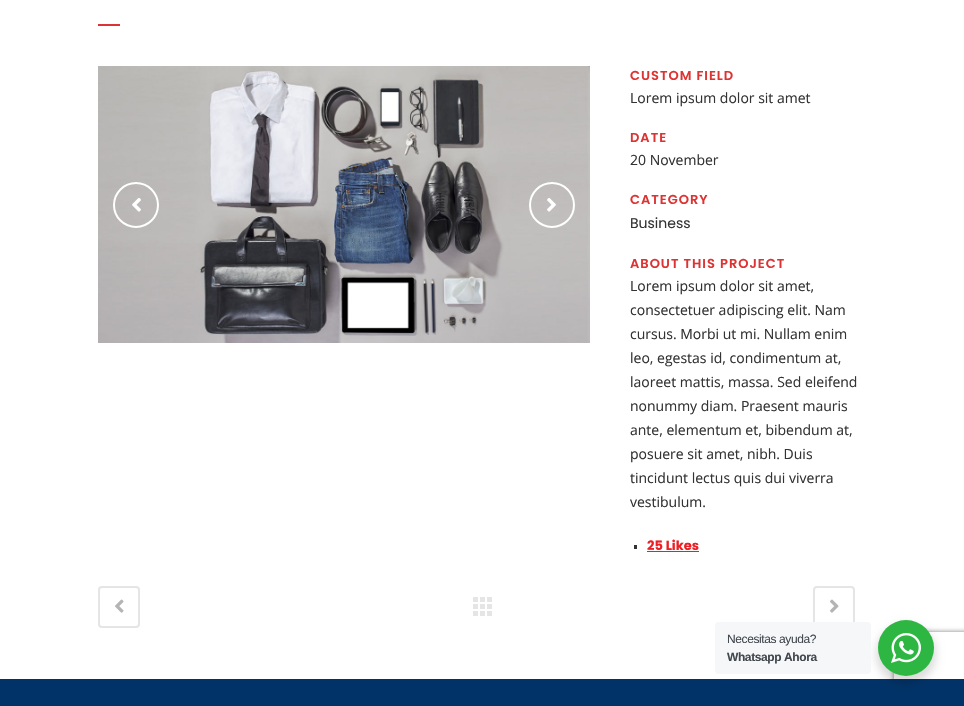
#include "include/core/SkBlurTypes.h"
#include "include/core/SkCanvas.h"
#include "include/core/SkData.h"
#include "include/core/SkFont.h"
#include "include/core/SkFontMgr.h"
#include "include/core/SkImage.h"
#include "include/core/SkMaskFilter.h"
#include "include/core/SkPaint.h"
#include "include/core/SkPathBuilder.h"
#include "include/core/SkTextBlob.h"
#include "include/effects/SkDashPathEffect.h"
#include "include/effects/SkGradientShader.h"
#include "include/utils/SkParsePath.h"

extern sk_sp<SkFontMgr> fontMgr;

void draw(SkCanvas* canvas) {
  SkPaint p;
  p.setAntiAlias(true);
  auto spacedText = [&](const char* s, float x, float y, const SkFont& font, const SkPaint& ink, float letter, float word) {
    std::vector<SkGlyphID> glyphs(font.countText(s, strlen(s), SkTextEncoding::kUTF8));
    std::vector<float> xs(glyphs.size());
    font.textToGlyphs(s, strlen(s), SkTextEncoding::kUTF8, glyphs);
    font.getXPos(glyphs, xs, x);
    float extra = 0;
    for (size_t i = 0; i < glyphs.size(); i++) {
      xs[i] += extra;
      extra += letter + word * (glyphs[i] == font.unicharToGlyph(' '));
    }
    canvas->drawTextBlob(SkTextBlob::MakeFromPosHGlyphs(glyphs, xs, y, font), 0, 0, ink);
  };
  canvas->clear(SK_ColorWHITE);
  p.setColor(SkColorSetRGB(221, 51, 51));
  canvas->drawRect(SkRect::MakeLTRB(98, 24, 120, 26), p);
  canvas->drawImageRect(SkImages::DeferredFromEncodedData(SkData::MakeFromFileName("images/1.png")), SkRect::MakeLTRB(98, 66, 590, 343), SkSamplingOptions());
  p.setStyle(SkPaint::kStroke_Style);
  p.setStrokeWidth(2);
  p.setColor(SK_ColorWHITE);
  canvas->drawCircle(136, 205, 22, p);
  canvas->drawImageRect(SkImages::DeferredFromEncodedData(SkData::MakeFromFileName("images/2.png")), SkRect::MakeLTRB(132, 198, 141, 212), SkSamplingOptions());
  canvas->drawCircle(552, 205, 22, p);
  canvas->drawImageRect(SkImages::DeferredFromEncodedData(SkData::MakeFromFileName("images/3.png")), SkRect::MakeLTRB(547, 198, 556, 212), SkSamplingOptions());
  p.setStyle(SkPaint::kFill_Style);
  p.setColor(SkColorSetRGB(51, 51, 51));
  canvas->drawRect(SkRect::MakeLTRB(634, 545, 637, 549), p);
  p.setColor(SkColorSetRGB(237, 31, 36));
  canvas->drawRect(SkRect::MakeLTRB(647, 551, 699, 552), p);
  p.setStyle(SkPaint::kStroke_Style);
  p.setColor(SkColorSetRGB(229, 229, 229));
  canvas->drawRoundRect(SkRect::MakeLTRB(99, 587, 139, 627), 3, 3, p);
  canvas->drawImageRect(SkImages::DeferredFromEncodedData(SkData::MakeFromFileName("images/4.png")), SkRect::MakeLTRB(115, 599, 124, 613), SkSamplingOptions());
  canvas->drawImageRect(SkImages::DeferredFromEncodedData(SkData::MakeFromFileName("images/5.png")), SkRect::MakeLTRB(473, 597, 492, 616), SkSamplingOptions());
  canvas->drawRoundRect(SkRect::MakeLTRB(814, 587, 854, 627), 3, 3, p);
  canvas->drawImageRect(SkImages::DeferredFromEncodedData(SkData::MakeFromFileName("images/6.png")), SkRect::MakeLTRB(830, 599, 839, 613), SkSamplingOptions());
  canvas->save();
  canvas->clipPath(SkPathBuilder(SkPathFillType::kEvenOdd).moveTo(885, 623).lineTo(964, 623).lineTo(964, 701).lineTo(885, 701).close().moveTo(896, 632).lineTo(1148, 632).cubicTo(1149, 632, 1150, 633, 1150, 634).lineTo(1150, 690).cubicTo(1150, 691, 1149, 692, 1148, 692).lineTo(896, 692).cubicTo(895, 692, 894, 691, 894, 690).lineTo(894, 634).cubicTo(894, 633, 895, 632, 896, 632).close().detach(), true);
  p.setStyle(SkPaint::kFill_Style);
  p.setColor(SkColorSetRGB(128, 128, 128));
  p.setMaskFilter(SkMaskFilter::MakeBlur(kNormal_SkBlurStyle, 2.5f));
  canvas->drawRoundRect(SkRect::MakeLTRB(894, 632, 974, 692), 2, 2, p);
  p.setMaskFilter(nullptr);
  canvas->restore();
  p.setColor(SkColorSetRGB(2, 51, 104));
  canvas->drawRect(SkRect::MakeLTRB(0, 679, 964, 706), p);
  p.setColor(SkColorSetARGB(36, 0, 0, 0));
  p.setMaskFilter(SkMaskFilter::MakeBlur(kNormal_SkBlurStyle, 4));
  canvas->drawRoundRect(SkRect::MakeLTRB(876, 624, 936, 684), 30, 30, p);
  p.setMaskFilter(nullptr);
  p.setColor(SkColorSetRGB(245, 247, 249));
  canvas->drawRoundRect(SkRect::MakeLTRB(715, 622, 871, 674), 4, 4, p);
  p.setColor(SkColorSetRGB(45, 183, 66));
  canvas->drawCircle(906, 648, 28, p);
  canvas->drawImageRect(SkImages::DeferredFromEncodedData(SkData::MakeFromFileName("images/7.png")), SkRect::MakeLTRB(891, 633, 921, 663), SkSamplingOptions());
  SkFont font1(fontMgr->matchFamilyStyle("Poppins", SkFontStyle(600, SkFontStyle::kNormal_Width, SkFontStyle::kUpright_Slant)), 13);
  font1.setSubpixel(true);
  p.setColor(SkColorSetRGB(221, 51, 51));
  spacedText("CUSTOM FIELD", 630, 80, font1, p, 1, 0);
  SkFont font2(fontMgr->matchFamilyStyle("Open Sans", SkFontStyle::Normal()), 14);
  font2.setSubpixel(true);
  p.setColor(SkColorSetRGB(51, 51, 51));
  canvas->drawString("Lorem ipsum dolor sit amet", 630, 103, font2, p);
  p.setColor(SkColorSetRGB(221, 51, 51));
  spacedText("DATE", 630, 142, font1, p, 1, 0);
  p.setColor(SkColorSetRGB(51, 51, 51));
  canvas->drawString("20 November", 630, 165, font2, p);
  p.setColor(SkColorSetRGB(221, 51, 51));
  spacedText("CATEGORY", 630, 204, font1, p, 1, 0);
  SkFont font3(fontMgr->matchFamilyStyle("Poppins", SkFontStyle::Normal()), 14);
  font3.setSubpixel(true);
  p.setColor(SkColorSetRGB(51, 51, 51));
  canvas->drawString("Business", 630, 228, font3, p);
  p.setColor(SkColorSetRGB(221, 51, 51));
  spacedText("ABOUT THIS PROJECT", 630, 268, font1, p, 1, 0);
  p.setColor(SkColorSetRGB(51, 51, 51));
  canvas->drawString("Lorem ipsum dolor sit amet,", 630, 291, font2, p);
  canvas->drawString("consectetuer adipiscing elit. Nam", 630, 315, font2, p);
  canvas->drawString("cursus. Morbi ut mi. Nullam enim", 630, 339, font2, p);
  canvas->drawString("leo, egestas id, condimentum at,", 630, 363, font2, p);
  canvas->drawString("laoreet mattis, massa. Sed eleifend", 630, 387, font2, p);
  canvas->drawString("nonummy diam. Praesent mauris", 630, 411, font2, p);
  canvas->drawString("ante, elementum et, bibendum at,", 630, 435, font2, p);
  canvas->drawString("posuere sit amet, nibh. Duis", 630, 459, font2, p);
  canvas->drawString("tincidunt lectus quis dui viverra", 630, 483, font2, p);
  canvas->drawString("vestibulum.", 630, 507, font2, p);
  SkFont font4(fontMgr->matchFamilyStyle("Poppins", SkFontStyle::Bold()), 13);
  font4.setSubpixel(true);
  p.setColor(SkColorSetRGB(237, 31, 36));
  canvas->drawString("25 Likes", 647, 550, font4, p);
  SkFont font5(fontMgr->matchFamilyStyle("Liberation Sans", SkFontStyle::Normal()), 12);
  font5.setSubpixel(true);
  p.setColor(SkColorSetRGB(67, 71, 78));
  spacedText("Necesitas ayuda?", 727, 643, font5, p, -0.4f, 0);
  SkFont font6(fontMgr->matchFamilyStyle("Liberation Sans", SkFontStyle::Bold()), 12);
  font6.setSubpixel(true);
  spacedText("Whatsapp Ahora", 727, 661, font6, p, -0.4f, 0);
}
